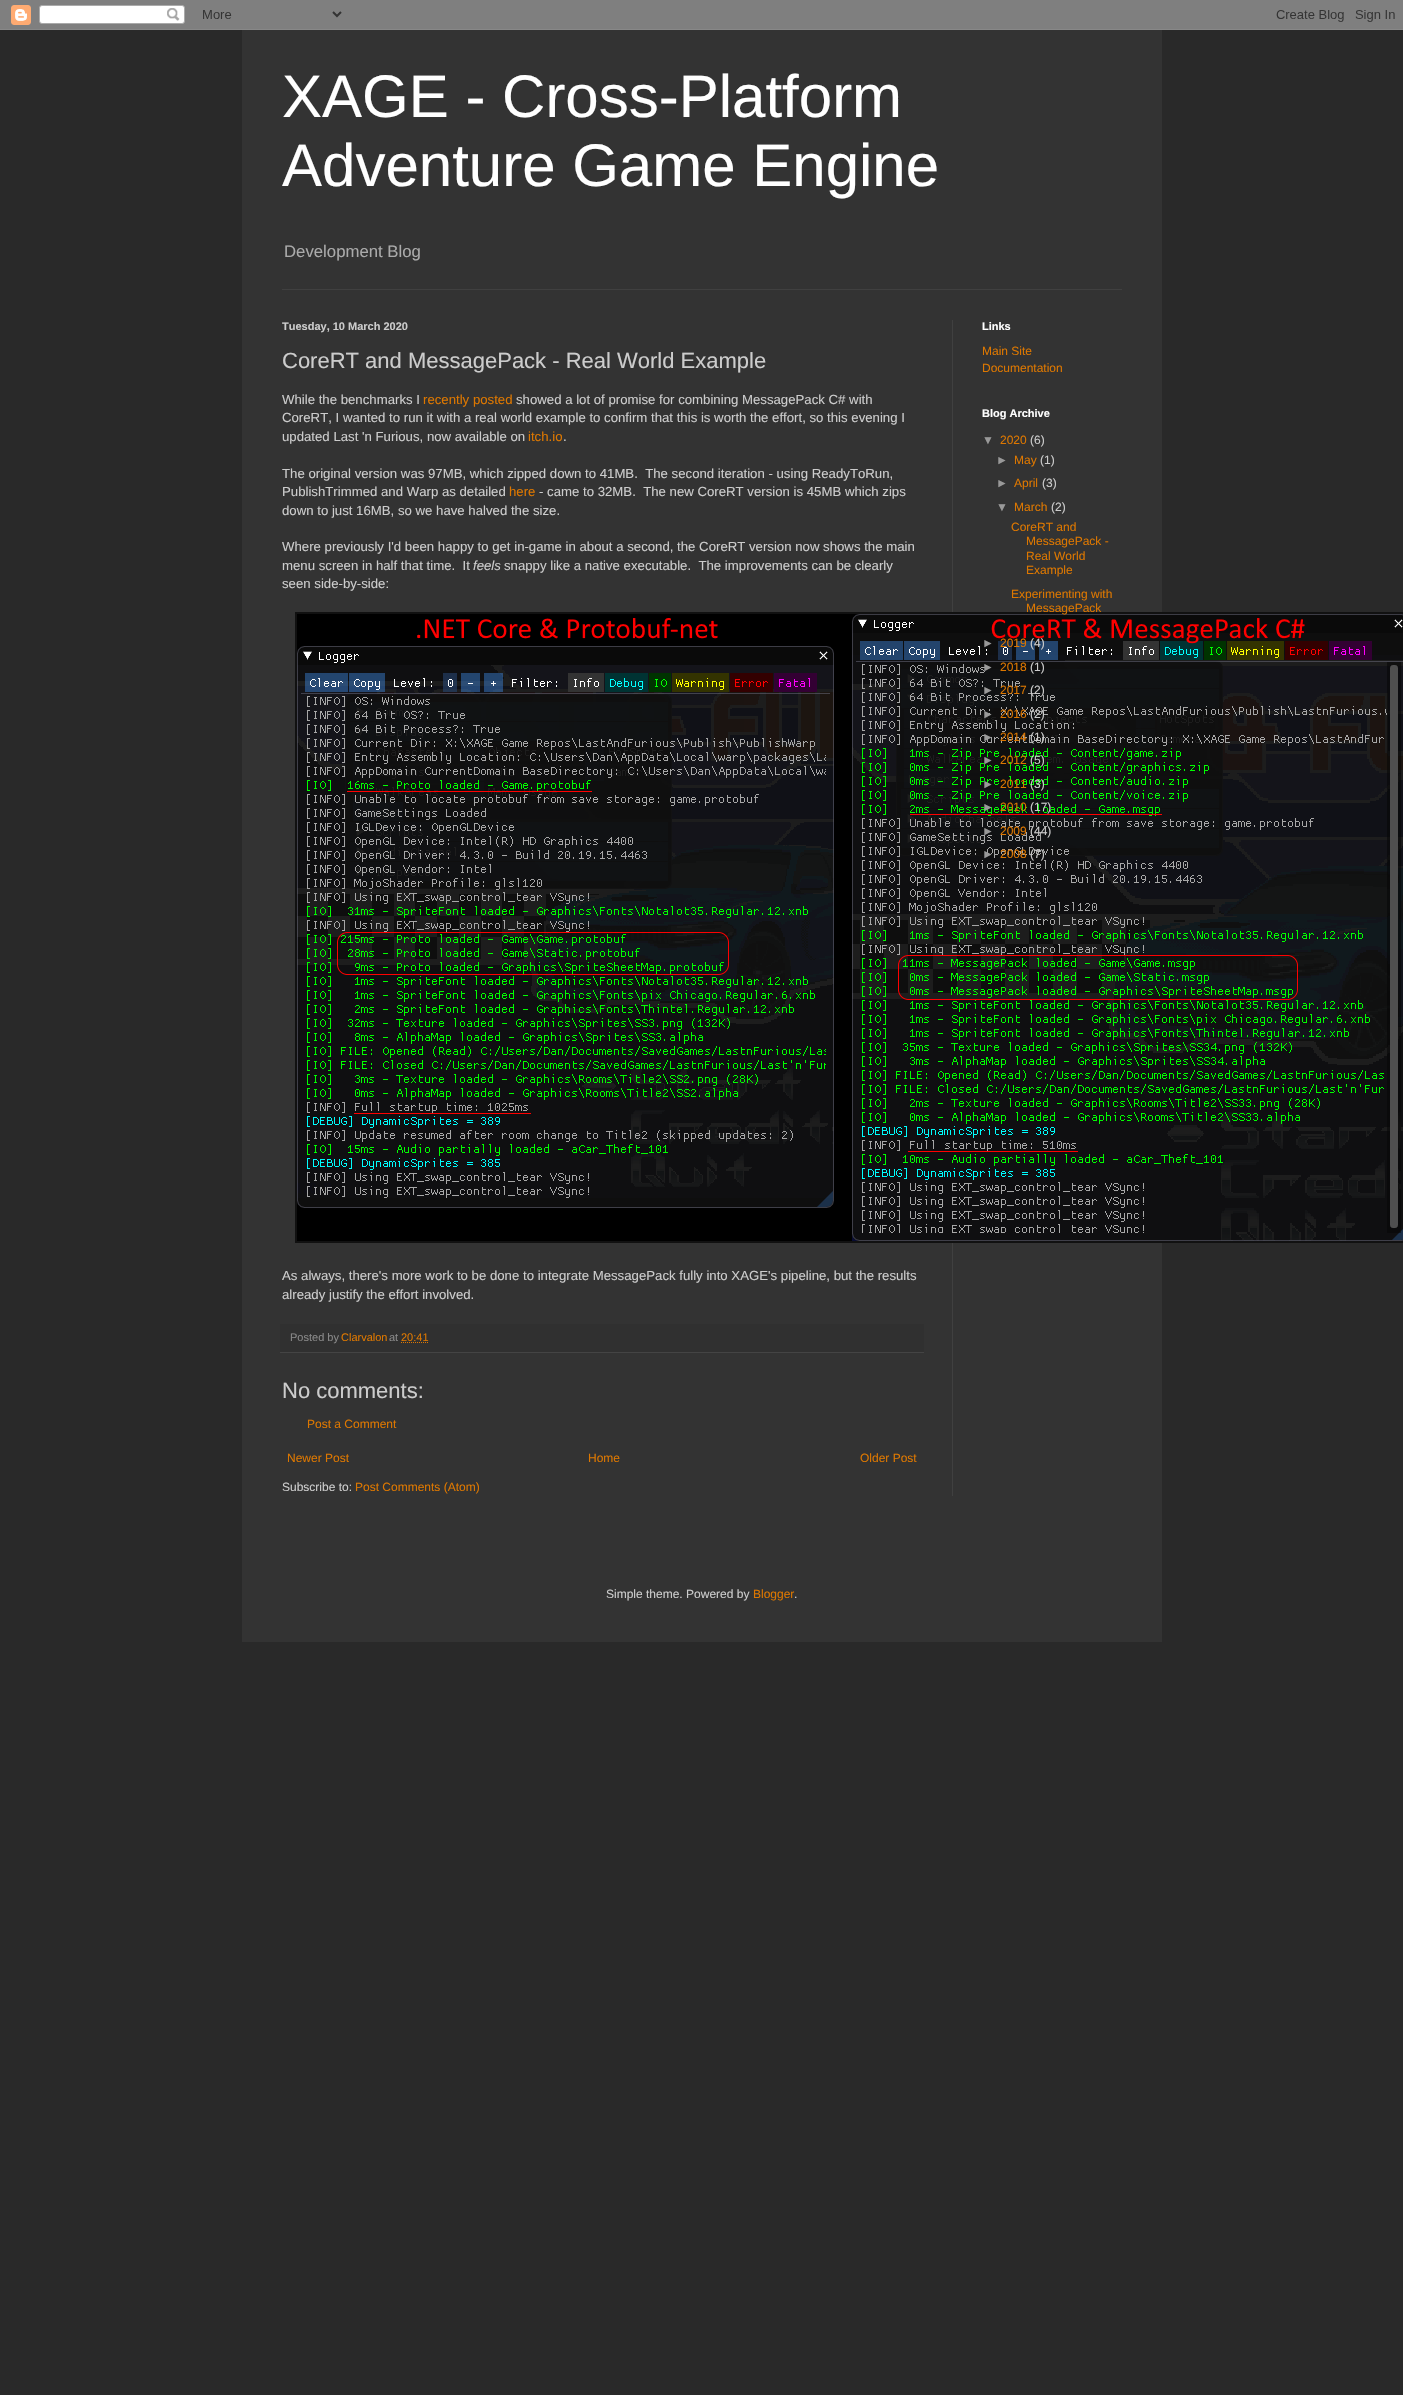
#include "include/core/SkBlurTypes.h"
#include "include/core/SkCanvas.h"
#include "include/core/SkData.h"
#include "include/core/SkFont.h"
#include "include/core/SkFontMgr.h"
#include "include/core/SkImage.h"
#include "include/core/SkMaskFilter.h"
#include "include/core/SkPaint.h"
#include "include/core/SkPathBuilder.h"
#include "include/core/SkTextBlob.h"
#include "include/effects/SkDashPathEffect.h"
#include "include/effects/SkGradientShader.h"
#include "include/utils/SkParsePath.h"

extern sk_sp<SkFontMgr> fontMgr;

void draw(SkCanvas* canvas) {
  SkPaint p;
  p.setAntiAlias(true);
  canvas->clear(SkColorSetRGB(41, 41, 41));
  canvas->drawImageRect(SkImages::DeferredFromEncodedData(SkData::MakeFromFileName("images/1.png")), SkRect::MakeLTRB(0, 0, 1403, 30), SkSamplingOptions());
  p.setColor(SkColorSetRGB(51, 51, 51));
  canvas->drawRect(SkRect::MakeLTRB(242, 30, 1162, 1642), p);
  p.setColor(SkColorSetRGB(64, 64, 64));
  canvas->drawRect(SkRect::MakeLTRB(282, 289, 1122, 290), p);
  canvas->drawRect(SkRect::MakeLTRB(952, 320, 953, 1496), p);
  p.setColor(SkColorSetRGB(17, 17, 17));
  canvas->drawRect(SkRect::MakeLTRB(295, 612, 1403, 1243), p);
  canvas->drawImageRect(SkImages::DeferredFromEncodedData(SkData::MakeFromFileName("images/2.png")), SkRect::MakeLTRB(297, 614, 1403, 1241), SkSamplingOptions());
  p.setColor(SkColorSetRGB(48, 48, 48));
  canvas->drawRect(SkRect::MakeLTRB(280, 1324, 924, 1352), p);
  p.setColor(SkColorSetRGB(68, 68, 68));
  canvas->drawRect(SkRect::MakeLTRB(280, 1352, 924, 1353), p);
  p.setStyle(SkPaint::kStroke_Style);
  p.setStrokeWidth(1);
  p.setColor(SkColorSetRGB(221, 119, 0));
  p.setPathEffect(SkDashPathEffect::Make({{1, 1}}, 0));
  canvas->drawPath(SkPathBuilder().moveTo(401, 1342.5f).lineTo(428, 1342.5f).detach(), p);
  p.setPathEffect(nullptr);
  SkFont font1(fontMgr->matchFamilyStyle("Liberation Sans", SkFontStyle::Normal()), 60);
  font1.setSubpixel(true);
  p.setStyle(SkPaint::kFill_Style);
  p.setColor(SK_ColorWHITE);
  canvas->drawString("XAGE - Cross-Platform", 282, 117, font1, p);
  canvas->drawString("Adventure Game Engine", 282, 186, font1, p);
  SkFont font2(fontMgr->matchFamilyStyle("Liberation Sans", SkFontStyle::Normal()), 16.75f);
  font2.setSubpixel(true);
  p.setColor(SkColorSetRGB(170, 170, 170));
  canvas->drawString("Development Blog", 284, 257, font2, p);
  SkFont font3(fontMgr->matchFamilyStyle("Liberation Sans", SkFontStyle::Bold()), 11);
  font3.setSubpixel(true);
  p.setColor(SkColorSetRGB(204, 204, 204));
  canvas->drawString("Tuesday, 10 March 2020", 282, 330, font3, p);
  SkFont font4(fontMgr->matchFamilyStyle("Liberation Sans", SkFontStyle::Normal()), 22);
  font4.setSubpixel(true);
  canvas->drawString("CoreRT and MessagePack - Real World Example", 282, 368, font4, p);
  SkFont font5(fontMgr->matchFamilyStyle("Liberation Sans", SkFontStyle::Normal()), 13.2f);
  font5.setSubpixel(true);
  canvas->drawString("While the benchmarks I", 282, 404, font5, p);
  p.setColor(SkColorSetRGB(221, 119, 0));
  canvas->drawString("recently posted", 423, 404, font5, p);
  p.setColor(SkColorSetRGB(204, 204, 204));
  canvas->drawString("showed a lot of promise for combining MessagePack C# with", 516, 404, font5, p);
  canvas->drawString("CoreRT, I wanted to run it with a real world example to confirm that this is worth the effort, so this evening I", 282, 422, font5, p);
  canvas->drawString("updated Last 'n Furious, now available on", 282, 441, font5, p);
  p.setColor(SkColorSetRGB(221, 119, 0));
  canvas->drawString("itch.io", 528, 441, font5, p);
  p.setColor(SkColorSetRGB(204, 204, 204));
  canvas->drawString(".", 563, 441, font5, p);
  canvas->drawString("The original version was 97MB, which zipped down to 41MB.  The second iteration - using ReadyToRun,", 282, 478, font5, p);
  canvas->drawString("PublishTrimmed and Warp as detailed", 282, 496, font5, p);
  p.setColor(SkColorSetRGB(221, 119, 0));
  canvas->drawString("here", 509, 496, font5, p);
  p.setColor(SkColorSetRGB(204, 204, 204));
  canvas->drawString("- came to 32MB.  The new CoreRT version is 45MB which zips", 539, 496, font5, p);
  canvas->drawString("down to just 16MB, so we have halved the size.", 282, 515, font5, p);
  canvas->drawString("Where previously I'd been happy to get in-game in about a second, the CoreRT version now shows the main", 282, 551, font5, p);
  canvas->drawString("menu screen in half that time.  It", 282, 570, font5, p);
  SkFont font6(fontMgr->matchFamilyStyle("Liberation Sans", SkFontStyle::Italic()), 13.2f);
  font6.setSubpixel(true);
  canvas->drawString("feels", 473, 570, font6, p);
  canvas->drawString("snappy like a native executable.  The improvements can be clearly", 504, 570, font5, p);
  canvas->drawString("seen side-by-side:", 282, 588, font5, p);
  canvas->drawString("As always, there's more work to be done to integrate MessagePack fully into XAGE's pipeline, but the results", 282, 1280, font5, p);
  canvas->drawString("already justify the effort involved.", 282, 1299, font5, p);
  SkFont font7(fontMgr->matchFamilyStyle("Liberation Sans", SkFontStyle::Normal()), 11);
  font7.setSubpixel(true);
  p.setColor(SkColorSetRGB(136, 136, 136));
  canvas->drawString("Posted by", 290, 1341, font7, p);
  p.setColor(SkColorSetRGB(221, 119, 0));
  canvas->drawString("Clarvalon", 341, 1341, font7, p);
  p.setColor(SkColorSetRGB(136, 136, 136));
  canvas->drawString("at", 389, 1341, font7, p);
  p.setColor(SkColorSetRGB(221, 119, 0));
  canvas->drawString("20:41", 401, 1341, font7, p);
  p.setColor(SkColorSetRGB(204, 204, 204));
  canvas->drawString("No comments:", 282, 1398, font4, p);
  SkFont font8(fontMgr->matchFamilyStyle("Liberation Sans", SkFontStyle::Normal()), 12);
  font8.setSubpixel(true);
  p.setColor(SkColorSetRGB(221, 119, 0));
  canvas->drawString("Post a Comment", 307, 1428, font8, p);
  canvas->drawString("Newer Post", 287, 1462, font8, p);
  canvas->drawString("Home", 588, 1462, font8, p);
  canvas->drawString("Older Post", 860, 1462, font8, p);
  p.setColor(SkColorSetRGB(204, 204, 204));
  canvas->drawString("Subscribe to:", 282, 1491, font8, p);
  p.setColor(SkColorSetRGB(221, 119, 0));
  canvas->drawString("Post Comments (Atom)", 355, 1491, font8, p);
  p.setColor(SK_ColorWHITE);
  canvas->drawString("Links", 982, 330, font3, p);
  p.setColor(SkColorSetRGB(221, 119, 0));
  canvas->drawString("Main Site", 982, 355, font8, p);
  canvas->drawString("Documentation", 982, 372, font8, p);
  p.setColor(SK_ColorWHITE);
  canvas->drawString("Blog Archive", 982, 417, font3, p);
  p.setColor(SkColorSetRGB(153, 153, 153));
  canvas->drawString("▼", 982, 444, font8, p);
  p.setColor(SkColorSetRGB(221, 119, 0));
  canvas->drawString("2020", 1000, 444, font8, p);
  p.setColor(SkColorSetRGB(204, 204, 204));
  canvas->drawString("(6)", 1030, 444, font8, p);
  p.setColor(SkColorSetRGB(153, 153, 153));
  canvas->drawString("►", 996, 464, font8, p);
  p.setColor(SkColorSetRGB(221, 119, 0));
  canvas->drawString("May", 1014, 464, font8, p);
  p.setColor(SkColorSetRGB(204, 204, 204));
  canvas->drawString("(1)", 1040, 464, font8, p);
  p.setColor(SkColorSetRGB(153, 153, 153));
  canvas->drawString("►", 996, 487, font8, p);
  p.setColor(SkColorSetRGB(221, 119, 0));
  canvas->drawString("April", 1014, 487, font8, p);
  p.setColor(SkColorSetRGB(204, 204, 204));
  canvas->drawString("(3)", 1042, 487, font8, p);
  p.setColor(SkColorSetRGB(153, 153, 153));
  canvas->drawString("▼", 996, 511, font8, p);
  p.setColor(SkColorSetRGB(221, 119, 0));
  canvas->drawString("March", 1014, 511, font8, p);
  p.setColor(SkColorSetRGB(204, 204, 204));
  canvas->drawString("(2)", 1051, 511, font8, p);
  p.setColor(SkColorSetRGB(221, 119, 0));
  canvas->drawString("CoreRT and", 1011, 531, font8, p);
  canvas->drawString("MessagePack -", 1026, 545, font8, p);
  canvas->drawString("Real World", 1026, 560, font8, p);
  canvas->drawString("Example", 1026, 574, font8, p);
  canvas->drawString("Experimenting with", 1011, 598, font8, p);
  canvas->drawString("MessagePack", 1026, 612, font8, p);
  p.setColor(SkColorSetRGB(153, 153, 153));
  canvas->drawString("►", 982, 647, font8, p);
  p.setColor(SkColorSetRGB(221, 119, 0));
  canvas->drawString("2019", 1000, 647, font8, p);
  p.setColor(SkColorSetRGB(204, 204, 204));
  canvas->drawString("(4)", 1030, 647, font8, p);
  p.setColor(SkColorSetRGB(153, 153, 153));
  canvas->drawString("►", 982, 671, font8, p);
  p.setColor(SkColorSetRGB(221, 119, 0));
  canvas->drawString("2018", 1000, 671, font8, p);
  p.setColor(SkColorSetRGB(204, 204, 204));
  canvas->drawString("(1)", 1030, 671, font8, p);
  p.setColor(SkColorSetRGB(153, 153, 153));
  canvas->drawString("►", 982, 694, font8, p);
  p.setColor(SkColorSetRGB(221, 119, 0));
  canvas->drawString("2017", 1000, 694, font8, p);
  p.setColor(SkColorSetRGB(204, 204, 204));
  canvas->drawString("(2)", 1030, 694, font8, p);
  p.setColor(SkColorSetRGB(153, 153, 153));
  canvas->drawString("►", 982, 718, font8, p);
  p.setColor(SkColorSetRGB(221, 119, 0));
  canvas->drawString("2016", 1000, 718, font8, p);
  p.setColor(SkColorSetRGB(204, 204, 204));
  canvas->drawString("(2)", 1030, 718, font8, p);
  p.setColor(SkColorSetRGB(153, 153, 153));
  canvas->drawString("►", 982, 741, font8, p);
  p.setColor(SkColorSetRGB(221, 119, 0));
  canvas->drawString("2014", 1000, 741, font8, p);
  p.setColor(SkColorSetRGB(204, 204, 204));
  canvas->drawString("(1)", 1030, 741, font8, p);
  p.setColor(SkColorSetRGB(153, 153, 153));
  canvas->drawString("►", 982, 764, font8, p);
  p.setColor(SkColorSetRGB(221, 119, 0));
  canvas->drawString("2012", 1000, 764, font8, p);
  p.setColor(SkColorSetRGB(204, 204, 204));
  canvas->drawString("(5)", 1030, 764, font8, p);
  p.setColor(SkColorSetRGB(153, 153, 153));
  canvas->drawString("►", 982, 788, font8, p);
  p.setColor(SkColorSetRGB(221, 119, 0));
  canvas->drawString("2011", 1000, 788, font8, p);
  p.setColor(SkColorSetRGB(204, 204, 204));
  canvas->drawString("(3)", 1030, 788, font8, p);
  p.setColor(SkColorSetRGB(153, 153, 153));
  canvas->drawString("►", 982, 811, font8, p);
  p.setColor(SkColorSetRGB(221, 119, 0));
  canvas->drawString("2010", 1000, 811, font8, p);
  p.setColor(SkColorSetRGB(204, 204, 204));
  canvas->drawString("(17)", 1030, 811, font8, p);
  p.setColor(SkColorSetRGB(153, 153, 153));
  canvas->drawString("►", 982, 835, font8, p);
  p.setColor(SkColorSetRGB(221, 119, 0));
  canvas->drawString("2009", 1000, 835, font8, p);
  p.setColor(SkColorSetRGB(204, 204, 204));
  canvas->drawString("(44)", 1030, 835, font8, p);
  p.setColor(SkColorSetRGB(153, 153, 153));
  canvas->drawString("►", 982, 858, font8, p);
  p.setColor(SkColorSetRGB(221, 119, 0));
  canvas->drawString("2008", 1000, 858, font8, p);
  p.setColor(SkColorSetRGB(204, 204, 204));
  canvas->drawString("(7)", 1030, 858, font8, p);
  canvas->drawString("Simple theme. Powered by", 606, 1598, font8, p);
  p.setColor(SkColorSetRGB(221, 119, 0));
  canvas->drawString("Blogger", 753, 1598, font8, p);
  p.setColor(SkColorSetRGB(204, 204, 204));
  canvas->drawString(".", 794, 1598, font8, p);
}
